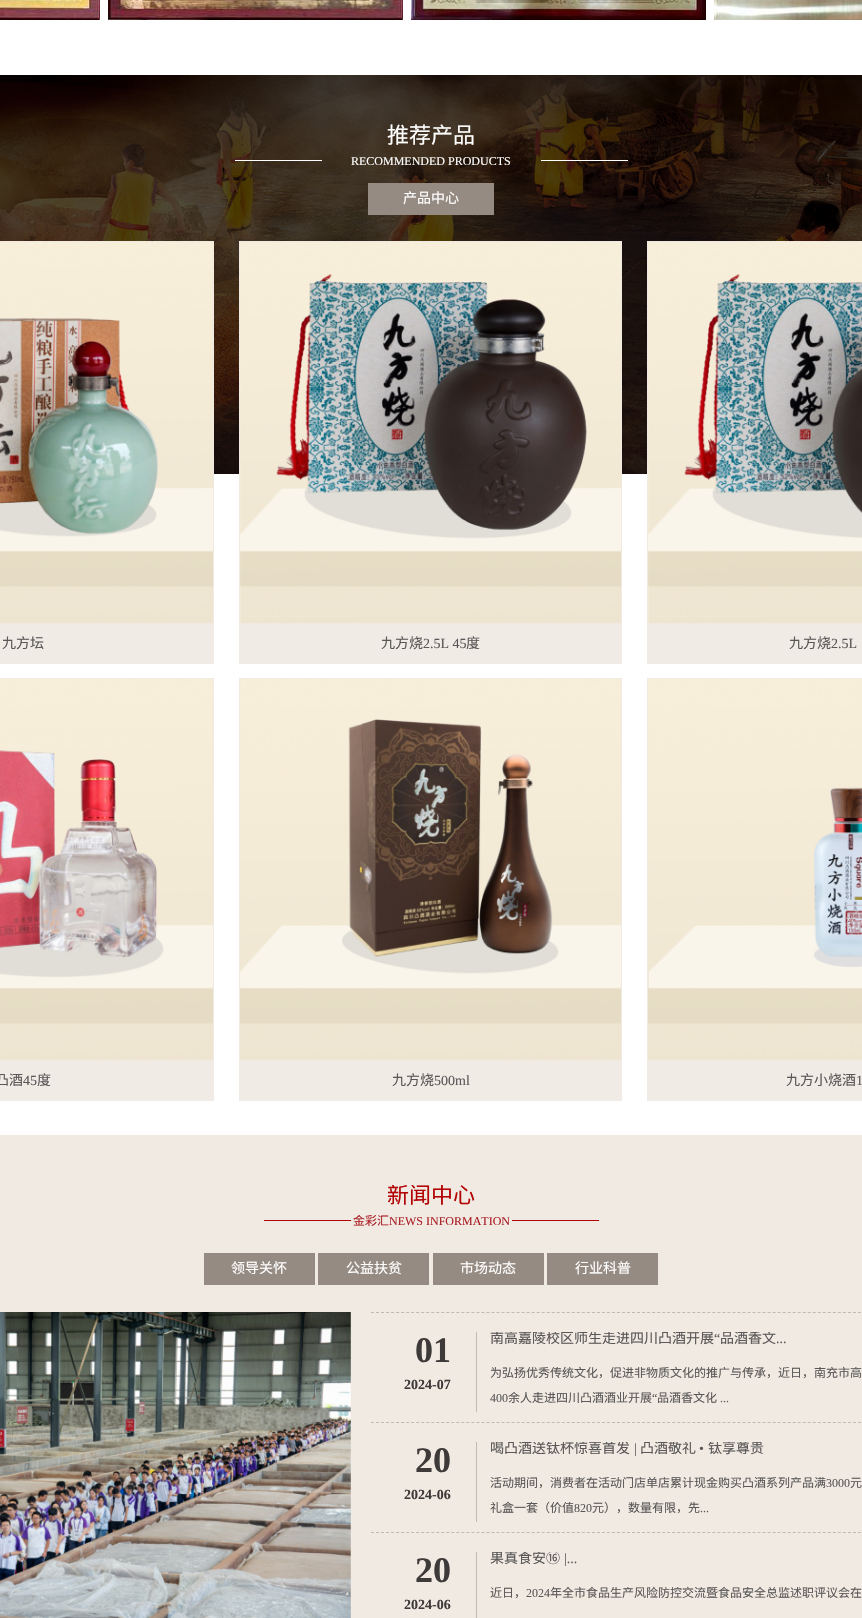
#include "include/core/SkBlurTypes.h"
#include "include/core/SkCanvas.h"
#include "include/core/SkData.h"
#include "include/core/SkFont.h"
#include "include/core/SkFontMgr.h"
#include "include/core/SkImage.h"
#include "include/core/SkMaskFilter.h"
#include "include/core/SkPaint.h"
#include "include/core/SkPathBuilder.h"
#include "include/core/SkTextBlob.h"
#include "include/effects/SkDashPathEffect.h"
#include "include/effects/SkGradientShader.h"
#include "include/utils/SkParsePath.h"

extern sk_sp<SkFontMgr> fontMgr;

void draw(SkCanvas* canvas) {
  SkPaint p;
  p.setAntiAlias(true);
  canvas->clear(SK_ColorWHITE);
  canvas->drawImageRect(SkImages::DeferredFromEncodedData(SkData::MakeFromFileName("images/1.png")), SkRect::MakeLTRB(0, 0, 100, 20), SkSamplingOptions());
  canvas->drawImageRect(SkImages::DeferredFromEncodedData(SkData::MakeFromFileName("images/2.png")), SkRect::MakeLTRB(108, 0, 403, 20), SkSamplingOptions());
  canvas->drawImageRect(SkImages::DeferredFromEncodedData(SkData::MakeFromFileName("images/3.png")), SkRect::MakeLTRB(411, 0, 706, 20), SkSamplingOptions());
  canvas->drawImageRect(SkImages::DeferredFromEncodedData(SkData::MakeFromFileName("images/4.png")), SkRect::MakeLTRB(714, 0, 862, 20), SkSamplingOptions());
  canvas->drawImageRect(SkImages::DeferredFromEncodedData(SkData::MakeFromFileName("images/5.png")), SkRect::MakeLTRB(0, 75, 862, 474), SkSamplingOptions());
  canvas->drawImageRect(SkImages::DeferredFromEncodedData(SkData::MakeFromFileName("images/6.png")), SkRect::MakeLTRB(235, 160, 628, 161), SkSamplingOptions());
  p.setColor(SkColorSetRGB(150, 139, 131));
  canvas->drawRect(SkRect::MakeLTRB(368, 183, 494, 215), p);
  p.setStyle(SkPaint::kStroke_Style);
  p.setStrokeWidth(1);
  p.setColor(SkColorSetRGB(241, 234, 226));
  canvas->drawRect(SkRect::MakeLTRB(-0.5f, 241.5f, 213.5f, 623.5f), p);
  canvas->drawImageRect(SkImages::DeferredFromEncodedData(SkData::MakeFromFileName("images/7.png")), SkRect::MakeLTRB(0, 242, 213, 623), SkSamplingOptions());
  p.setStyle(SkPaint::kFill_Style);
  p.setColor(SkColorSetRGB(240, 235, 229));
  canvas->drawRect(SkRect::MakeLTRB(0, 624, 214, 664), p);
  p.setStyle(SkPaint::kStroke_Style);
  p.setColor(SkColorSetRGB(241, 234, 226));
  canvas->drawRect(SkRect::MakeLTRB(239.5f, 241.5f, 621.5f, 623.5f), p);
  canvas->drawImageRect(SkImages::DeferredFromEncodedData(SkData::MakeFromFileName("images/8.png")), SkRect::MakeLTRB(240, 242, 621, 623), SkSamplingOptions());
  p.setStyle(SkPaint::kFill_Style);
  p.setColor(SkColorSetRGB(240, 235, 229));
  canvas->drawRect(SkRect::MakeLTRB(239, 624, 622, 664), p);
  p.setStyle(SkPaint::kStroke_Style);
  p.setColor(SkColorSetRGB(241, 234, 226));
  canvas->drawRect(SkRect::MakeLTRB(647.5f, 241.5f, 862.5f, 623.5f), p);
  canvas->drawImageRect(SkImages::DeferredFromEncodedData(SkData::MakeFromFileName("images/9.png")), SkRect::MakeLTRB(648, 242, 862, 623), SkSamplingOptions());
  p.setStyle(SkPaint::kFill_Style);
  p.setColor(SkColorSetRGB(240, 235, 229));
  canvas->drawRect(SkRect::MakeLTRB(647, 624, 862, 664), p);
  p.setStyle(SkPaint::kStroke_Style);
  p.setColor(SkColorSetRGB(241, 234, 226));
  canvas->drawRect(SkRect::MakeLTRB(-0.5f, 678.5f, 213.5f, 1060.5f), p);
  canvas->drawImageRect(SkImages::DeferredFromEncodedData(SkData::MakeFromFileName("images/10.png")), SkRect::MakeLTRB(0, 679, 213, 1060), SkSamplingOptions());
  p.setStyle(SkPaint::kFill_Style);
  p.setColor(SkColorSetRGB(240, 235, 229));
  canvas->drawRect(SkRect::MakeLTRB(0, 1061, 214, 1101), p);
  p.setStyle(SkPaint::kStroke_Style);
  p.setColor(SkColorSetRGB(241, 234, 226));
  canvas->drawRect(SkRect::MakeLTRB(239.5f, 678.5f, 621.5f, 1060.5f), p);
  canvas->drawImageRect(SkImages::DeferredFromEncodedData(SkData::MakeFromFileName("images/11.png")), SkRect::MakeLTRB(240, 679, 621, 1060), SkSamplingOptions());
  p.setStyle(SkPaint::kFill_Style);
  p.setColor(SkColorSetRGB(240, 235, 229));
  canvas->drawRect(SkRect::MakeLTRB(239, 1061, 622, 1101), p);
  p.setStyle(SkPaint::kStroke_Style);
  p.setColor(SkColorSetRGB(241, 234, 226));
  canvas->drawRect(SkRect::MakeLTRB(647.5f, 678.5f, 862.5f, 1060.5f), p);
  canvas->drawImageRect(SkImages::DeferredFromEncodedData(SkData::MakeFromFileName("images/12.png")), SkRect::MakeLTRB(648, 679, 862, 1060), SkSamplingOptions());
  p.setStyle(SkPaint::kFill_Style);
  p.setColor(SkColorSetRGB(240, 235, 229));
  canvas->drawRect(SkRect::MakeLTRB(647, 1061, 862, 1101), p);
  p.setColor(SkColorSetRGB(241, 234, 226));
  canvas->drawRect(SkRect::MakeLTRB(0, 1135, 862, 1618), p);
  canvas->drawImageRect(SkImages::DeferredFromEncodedData(SkData::MakeFromFileName("images/13.png")), SkRect::MakeLTRB(264, 1220, 599, 1221), SkSamplingOptions());
  p.setColor(SkColorSetRGB(150, 139, 131));
  canvas->drawRect(SkRect::MakeLTRB(204, 1253, 315, 1285), p);
  canvas->drawRect(SkRect::MakeLTRB(318, 1253, 429, 1285), p);
  canvas->drawRect(SkRect::MakeLTRB(433, 1253, 544, 1285), p);
  canvas->drawRect(SkRect::MakeLTRB(547, 1253, 658, 1285), p);
  canvas->drawImageRect(SkImages::DeferredFromEncodedData(SkData::MakeFromFileName("images/14.png")), SkRect::MakeLTRB(0, 1312, 351, 1618), SkSamplingOptions());
  p.setStyle(SkPaint::kStroke_Style);
  p.setColor(SkColorSetRGB(192, 186, 180));
  p.setPathEffect(SkDashPathEffect::Make({{3, 2.02f}}, 0));
  canvas->drawPath(SkPathBuilder().moveTo(371, 1312.5f).lineTo(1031, 1312.5f).detach(), p);
  p.setPathEffect(nullptr);
  p.setStyle(SkPaint::kFill_Style);
  canvas->drawRect(SkRect::MakeLTRB(476, 1332, 477, 1412), p);
  p.setStyle(SkPaint::kStroke_Style);
  p.setPathEffect(SkDashPathEffect::Make({{3, 2.02f}}, 0));
  canvas->drawPath(SkPathBuilder().moveTo(371, 1422.5f).lineTo(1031, 1422.5f).detach(), p);
  p.setPathEffect(nullptr);
  p.setStyle(SkPaint::kFill_Style);
  canvas->drawRect(SkRect::MakeLTRB(476, 1442, 477, 1522), p);
  p.setStyle(SkPaint::kStroke_Style);
  p.setPathEffect(SkDashPathEffect::Make({{3, 2.02f}}, 0));
  canvas->drawPath(SkPathBuilder().moveTo(371, 1532.5f).lineTo(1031, 1532.5f).detach(), p);
  p.setPathEffect(nullptr);
  p.setStyle(SkPaint::kFill_Style);
  canvas->drawRect(SkRect::MakeLTRB(476, 1552, 477, 1618), p);
  SkFont font1(fontMgr->matchFamilyStyle("Noto Sans CJK SC", SkFontStyle::Normal()), 22);
  font1.setSubpixel(true);
  p.setColor(SK_ColorWHITE);
  canvas->drawString("推荐产品", 387, 143, font1, p);
  SkFont font2(fontMgr->matchFamilyStyle("Liberation Serif", SkFontStyle::Normal()), 12);
  font2.setSubpixel(true);
  canvas->drawString("RECOMMENDED PRODUCTS", 351, 165, font2, p);
  SkFont font3(fontMgr->matchFamilyStyle("Noto Sans CJK SC", SkFontStyle::Normal()), 14);
  font3.setSubpixel(true);
  canvas->drawString("产品中心", 403, 203, font3, p);
  p.setColor(SkColorSetRGB(89, 87, 87));
  canvas->drawString("九方坛", 2, 648, font3, p);
  canvas->drawString("九方烧", 381, 648, font3, p);
  SkFont font4(fontMgr->matchFamilyStyle("Liberation Serif", SkFontStyle::Normal()), 14);
  font4.setSubpixel(true);
  canvas->drawString("2.5L 45", 423, 648, font4, p);
  canvas->drawString("度", 466, 648, font3, p);
  canvas->drawString("九方烧", 789, 648, font3, p);
  canvas->drawString("2.5L", 831, 648, font4, p);
  canvas->drawString("凸酒", -5, 1085, font3, p);
  canvas->drawString("45", 23, 1085, font4, p);
  canvas->drawString("度", 37, 1085, font3, p);
  canvas->drawString("九方烧", 392, 1085, font3, p);
  canvas->drawString("500ml", 434, 1085, font4, p);
  canvas->drawString("九方小烧酒", 786, 1085, font3, p);
  canvas->drawString("1", 856, 1085, font4, p);
  canvas->save();
  canvas->clipRect(SkRect::MakeLTRB(0, 1185, 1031, 1227));
  p.setColor(SkColorSetRGB(178, 4, 5));
  canvas->drawString("新闻中心", 387, 1203, font1, p);
  canvas->restore();
  SkFont font5(fontMgr->matchFamilyStyle("Noto Sans CJK SC", SkFontStyle::Normal()), 12);
  font5.setSubpixel(true);
  p.setColor(SkColorSetRGB(170, 29, 37));
  canvas->drawString("金彩汇", 353, 1225, font5, p);
  canvas->drawString("NEWS INFORMATION", 389, 1225, font2, p);
  p.setColor(SK_ColorWHITE);
  canvas->drawString("领导关怀", 231, 1273, font3, p);
  canvas->drawString("公益扶贫", 346, 1273, font3, p);
  canvas->drawString("市场动态", 460, 1273, font3, p);
  canvas->drawString("行业科普", 575, 1273, font3, p);
  SkFont font6(fontMgr->matchFamilyStyle("Liberation Serif", SkFontStyle::Bold()), 36);
  font6.setSubpixel(true);
  p.setColor(SkColorSetRGB(62, 58, 57));
  canvas->drawString("01", 415, 1362, font6, p);
  SkFont font7(fontMgr->matchFamilyStyle("Liberation Serif", SkFontStyle::Bold()), 14);
  font7.setSubpixel(true);
  canvas->drawString("2024-07", 404, 1389, font7, p);
  canvas->save();
  canvas->clipRect(SkRect::MakeLTRB(490, 1332, 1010, 1411));
  p.setColor(SkColorSetRGB(89, 87, 87));
  canvas->drawString("南高嘉陵校区师生走进四川凸酒开展", 490, 1343, font3, p);
  canvas->restore();
  canvas->drawString("“", 714, 1343, font4, p);
  canvas->save();
  canvas->clipRect(SkRect::MakeLTRB(490, 1332, 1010, 1411));
  canvas->drawString("品酒香文", 720, 1343, font3, p);
  canvas->restore();
  canvas->drawString("...", 776, 1343, font4, p);
  canvas->drawString("为弘扬优秀传统文化，促进非物质文化的推广与传承，近日，南充市高", 490, 1377, font5, p);
  canvas->drawString("400", 490, 1402, font2, p);
  canvas->drawString("余人走进四川凸酒酒业开展", 508, 1402, font5, p);
  canvas->drawString("“", 652, 1402, font2, p);
  canvas->drawString("品酒香文化", 657, 1402, font5, p);
  canvas->drawString("...", 720, 1402, font2, p);
  p.setColor(SkColorSetRGB(62, 58, 57));
  canvas->drawString("20", 415, 1472, font6, p);
  canvas->drawString("2024-06", 404, 1499, font7, p);
  canvas->save();
  canvas->clipRect(SkRect::MakeLTRB(490, 1442, 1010, 1521));
  p.setColor(SkColorSetRGB(89, 87, 87));
  canvas->drawString("喝凸酒送钛杯惊喜首发", 490, 1453, font3, p);
  canvas->restore();
  canvas->drawString("|", 634, 1453, font4, p);
  canvas->save();
  canvas->clipRect(SkRect::MakeLTRB(490, 1442, 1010, 1521));
  canvas->drawString("凸酒敬礼", 640, 1453, font3, p);
  canvas->restore();
  canvas->drawString("•", 699, 1453, font4, p);
  canvas->save();
  canvas->clipRect(SkRect::MakeLTRB(490, 1442, 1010, 1521));
  canvas->drawString("钛享尊贵", 708, 1453, font3, p);
  canvas->restore();
  canvas->drawString("活动期间，消费者在活动门店单店累计现金购买凸酒系列产品满", 490, 1487, font5, p);
  canvas->drawString("3000", 826, 1487, font2, p);
  canvas->drawString("元", 850, 1487, font5, p);
  canvas->drawString("礼盒一套（价值", 490, 1512, font5, p);
  canvas->drawString("820", 574, 1512, font2, p);
  canvas->drawString("元），数量有限，先", 592, 1512, font5, p);
  canvas->drawString("...", 700, 1512, font2, p);
  p.setColor(SkColorSetRGB(62, 58, 57));
  canvas->drawString("20", 415, 1582, font6, p);
  canvas->drawString("2024-06", 404, 1609, font7, p);
  canvas->save();
  canvas->clipRect(SkRect::MakeLTRB(490, 1552, 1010, 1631));
  p.setColor(SkColorSetRGB(89, 87, 87));
  canvas->drawString("果真食安⑯", 490, 1563, font3, p);
  canvas->restore();
  canvas->drawString("|...", 564, 1563, font4, p);
  canvas->drawString("近日，", 490, 1597, font5, p);
  canvas->drawString("2024", 526, 1597, font2, p);
  canvas->drawString("年全市食品生产风险防控交流暨食品安全总监述职评议会在", 550, 1597, font5, p);
}
